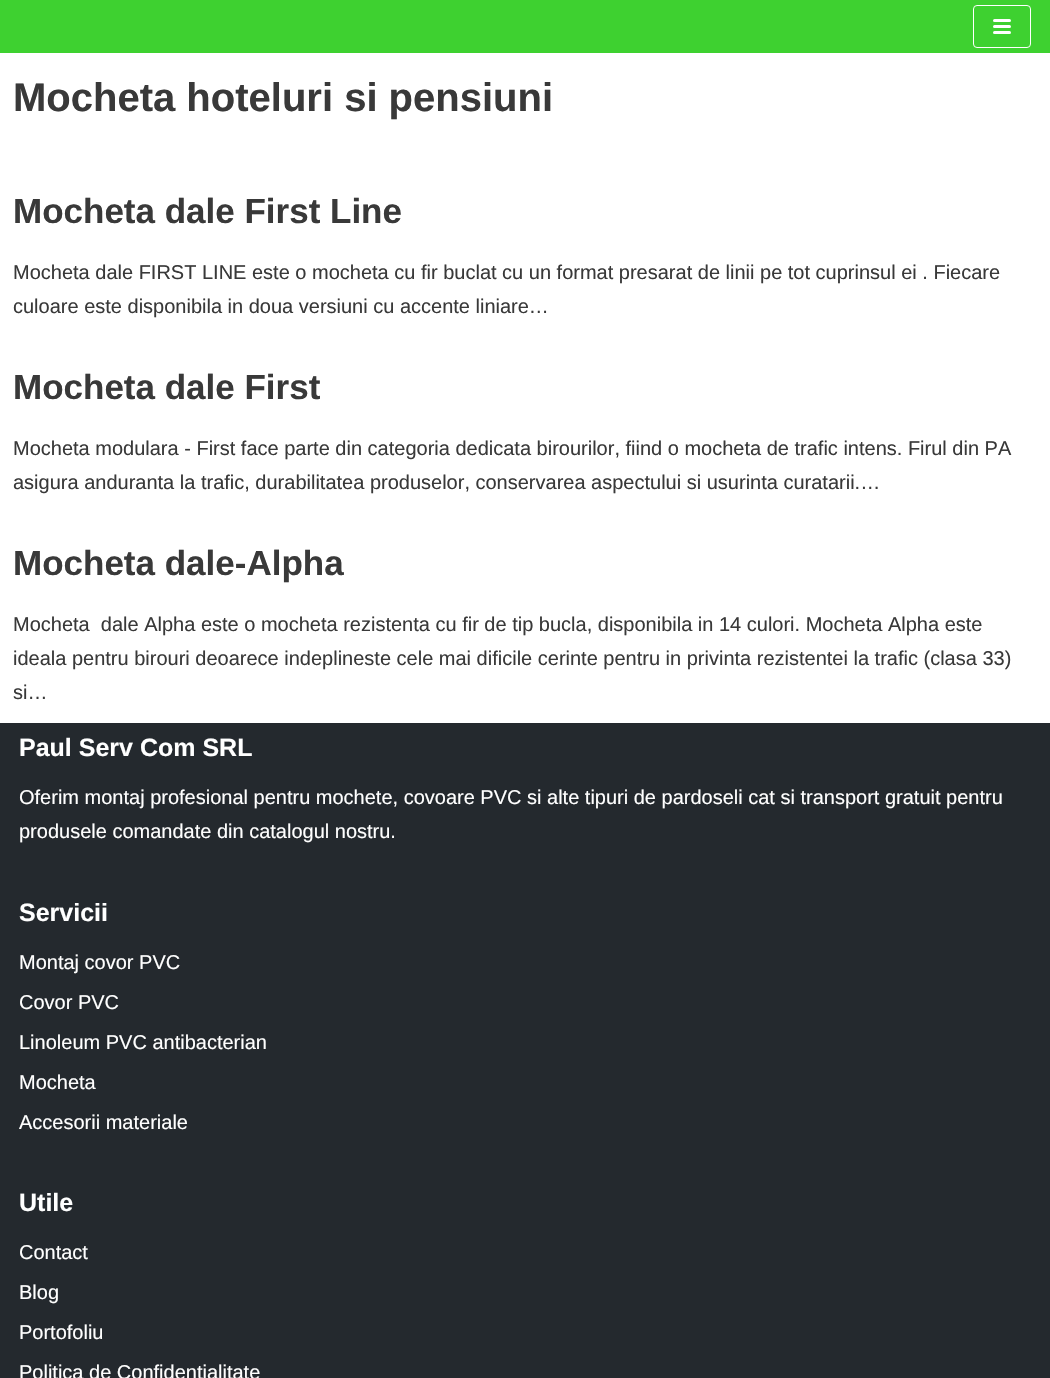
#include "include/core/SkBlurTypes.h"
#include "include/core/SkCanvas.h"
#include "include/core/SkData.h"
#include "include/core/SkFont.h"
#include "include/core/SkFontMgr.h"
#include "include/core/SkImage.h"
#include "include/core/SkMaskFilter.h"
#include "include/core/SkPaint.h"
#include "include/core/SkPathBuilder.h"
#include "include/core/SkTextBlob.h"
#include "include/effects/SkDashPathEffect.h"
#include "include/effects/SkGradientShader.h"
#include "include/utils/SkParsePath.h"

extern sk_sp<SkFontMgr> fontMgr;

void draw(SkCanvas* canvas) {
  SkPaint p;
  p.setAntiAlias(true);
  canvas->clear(SK_ColorWHITE);
  p.setColor(SkColorSetRGB(62, 209, 48));
  canvas->drawRect(SkRect::MakeLTRB(0, 0, 1050, 53), p);
  p.setStyle(SkPaint::kStroke_Style);
  p.setStrokeWidth(1);
  p.setColor(SK_ColorWHITE);
  canvas->drawRoundRect(SkRect::MakeLTRB(973.5f, 5.5f, 1030.5f, 47.5f), 3.5f, 3.5f, p);
  p.setStyle(SkPaint::kFill_Style);
  canvas->drawRoundRect(SkRect::MakeLTRB(993, 19, 1011, 22), 1.5f, 1.5f, p);
  canvas->drawRoundRect(SkRect::MakeLTRB(993, 25, 1011, 28), 1.5f, 1.5f, p);
  canvas->drawRoundRect(SkRect::MakeLTRB(993, 31, 1011, 34), 1.5f, 1.5f, p);
  p.setColor(SkColorSetRGB(36, 41, 46));
  canvas->drawRect(SkRect::MakeLTRB(0, 723, 1050, 1378), p);
  SkFont font1(fontMgr->matchFamilyStyle("Liberation Sans", SkFontStyle::Bold()), 40);
  font1.setSubpixel(true);
  p.setColor(SkColorSetRGB(57, 57, 57));
  canvas->drawString("Mocheta hoteluri si pensiuni", 13, 111, font1, p);
  SkFont font2(fontMgr->matchFamilyStyle("Liberation Sans", SkFontStyle::Bold()), 35);
  font2.setSubpixel(true);
  canvas->drawString("Mocheta dale First Line", 13, 223, font2, p);
  SkFont font3(fontMgr->matchFamilyStyle("Liberation Sans", SkFontStyle::Normal()), 20);
  font3.setSubpixel(true);
  canvas->drawString("Mocheta dale FIRST LINE este o mocheta cu fir buclat cu un format presarat de linii pe tot cuprinsul ei . Fiecare", 13, 279, font3, p);
  canvas->drawString("culoare este disponibila in doua versiuni cu accente liniare…", 13, 313, font3, p);
  canvas->drawString("Mocheta dale First", 13, 399, font2, p);
  canvas->drawString("Mocheta modulara - First face parte din categoria dedicata birourilor, fiind o mocheta de trafic intens. Firul din PA", 13, 455, font3, p);
  canvas->drawString("asigura anduranta la trafic, durabilitatea produselor, conservarea aspectului si usurinta curatarii.…", 13, 489, font3, p);
  canvas->drawString("Mocheta dale-Alpha", 13, 575, font2, p);
  canvas->drawString("Mocheta  dale Alpha este o mocheta rezistenta cu fir de tip bucla, disponibila in 14 culori. Mocheta Alpha este", 13, 631, font3, p);
  canvas->drawString("ideala pentru birouri deoarece indeplineste cele mai dificile cerinte pentru in privinta rezistentei la trafic (clasa 33)", 13, 665, font3, p);
  canvas->drawString("si…", 13, 699, font3, p);
  SkFont font4(fontMgr->matchFamilyStyle("Liberation Sans", SkFontStyle::Bold()), 25);
  font4.setSubpixel(true);
  p.setColor(SK_ColorWHITE);
  canvas->drawString("Paul Serv Com SRL", 19, 756, font4, p);
  canvas->drawString("Oferim montaj profesional pentru mochete, covoare PVC si alte tipuri de pardoseli cat si transport gratuit pentru", 19, 804, font3, p);
  canvas->drawString("produsele comandate din catalogul nostru.", 19, 838, font3, p);
  canvas->drawString("Servicii", 19, 921, font4, p);
  canvas->drawString("Montaj covor PVC", 19, 969, font3, p);
  canvas->drawString("Covor PVC", 19, 1009, font3, p);
  canvas->drawString("Linoleum PVC antibacterian", 19, 1049, font3, p);
  canvas->drawString("Mocheta", 19, 1089, font3, p);
  canvas->drawString("Accesorii materiale", 19, 1129, font3, p);
  canvas->drawString("Utile", 19, 1211, font4, p);
  canvas->drawString("Contact", 19, 1259, font3, p);
  canvas->drawString("Blog", 19, 1299, font3, p);
  canvas->drawString("Portofoliu", 19, 1339, font3, p);
  canvas->drawString("Politica de Confidentialitate", 19, 1379, font3, p);
}
